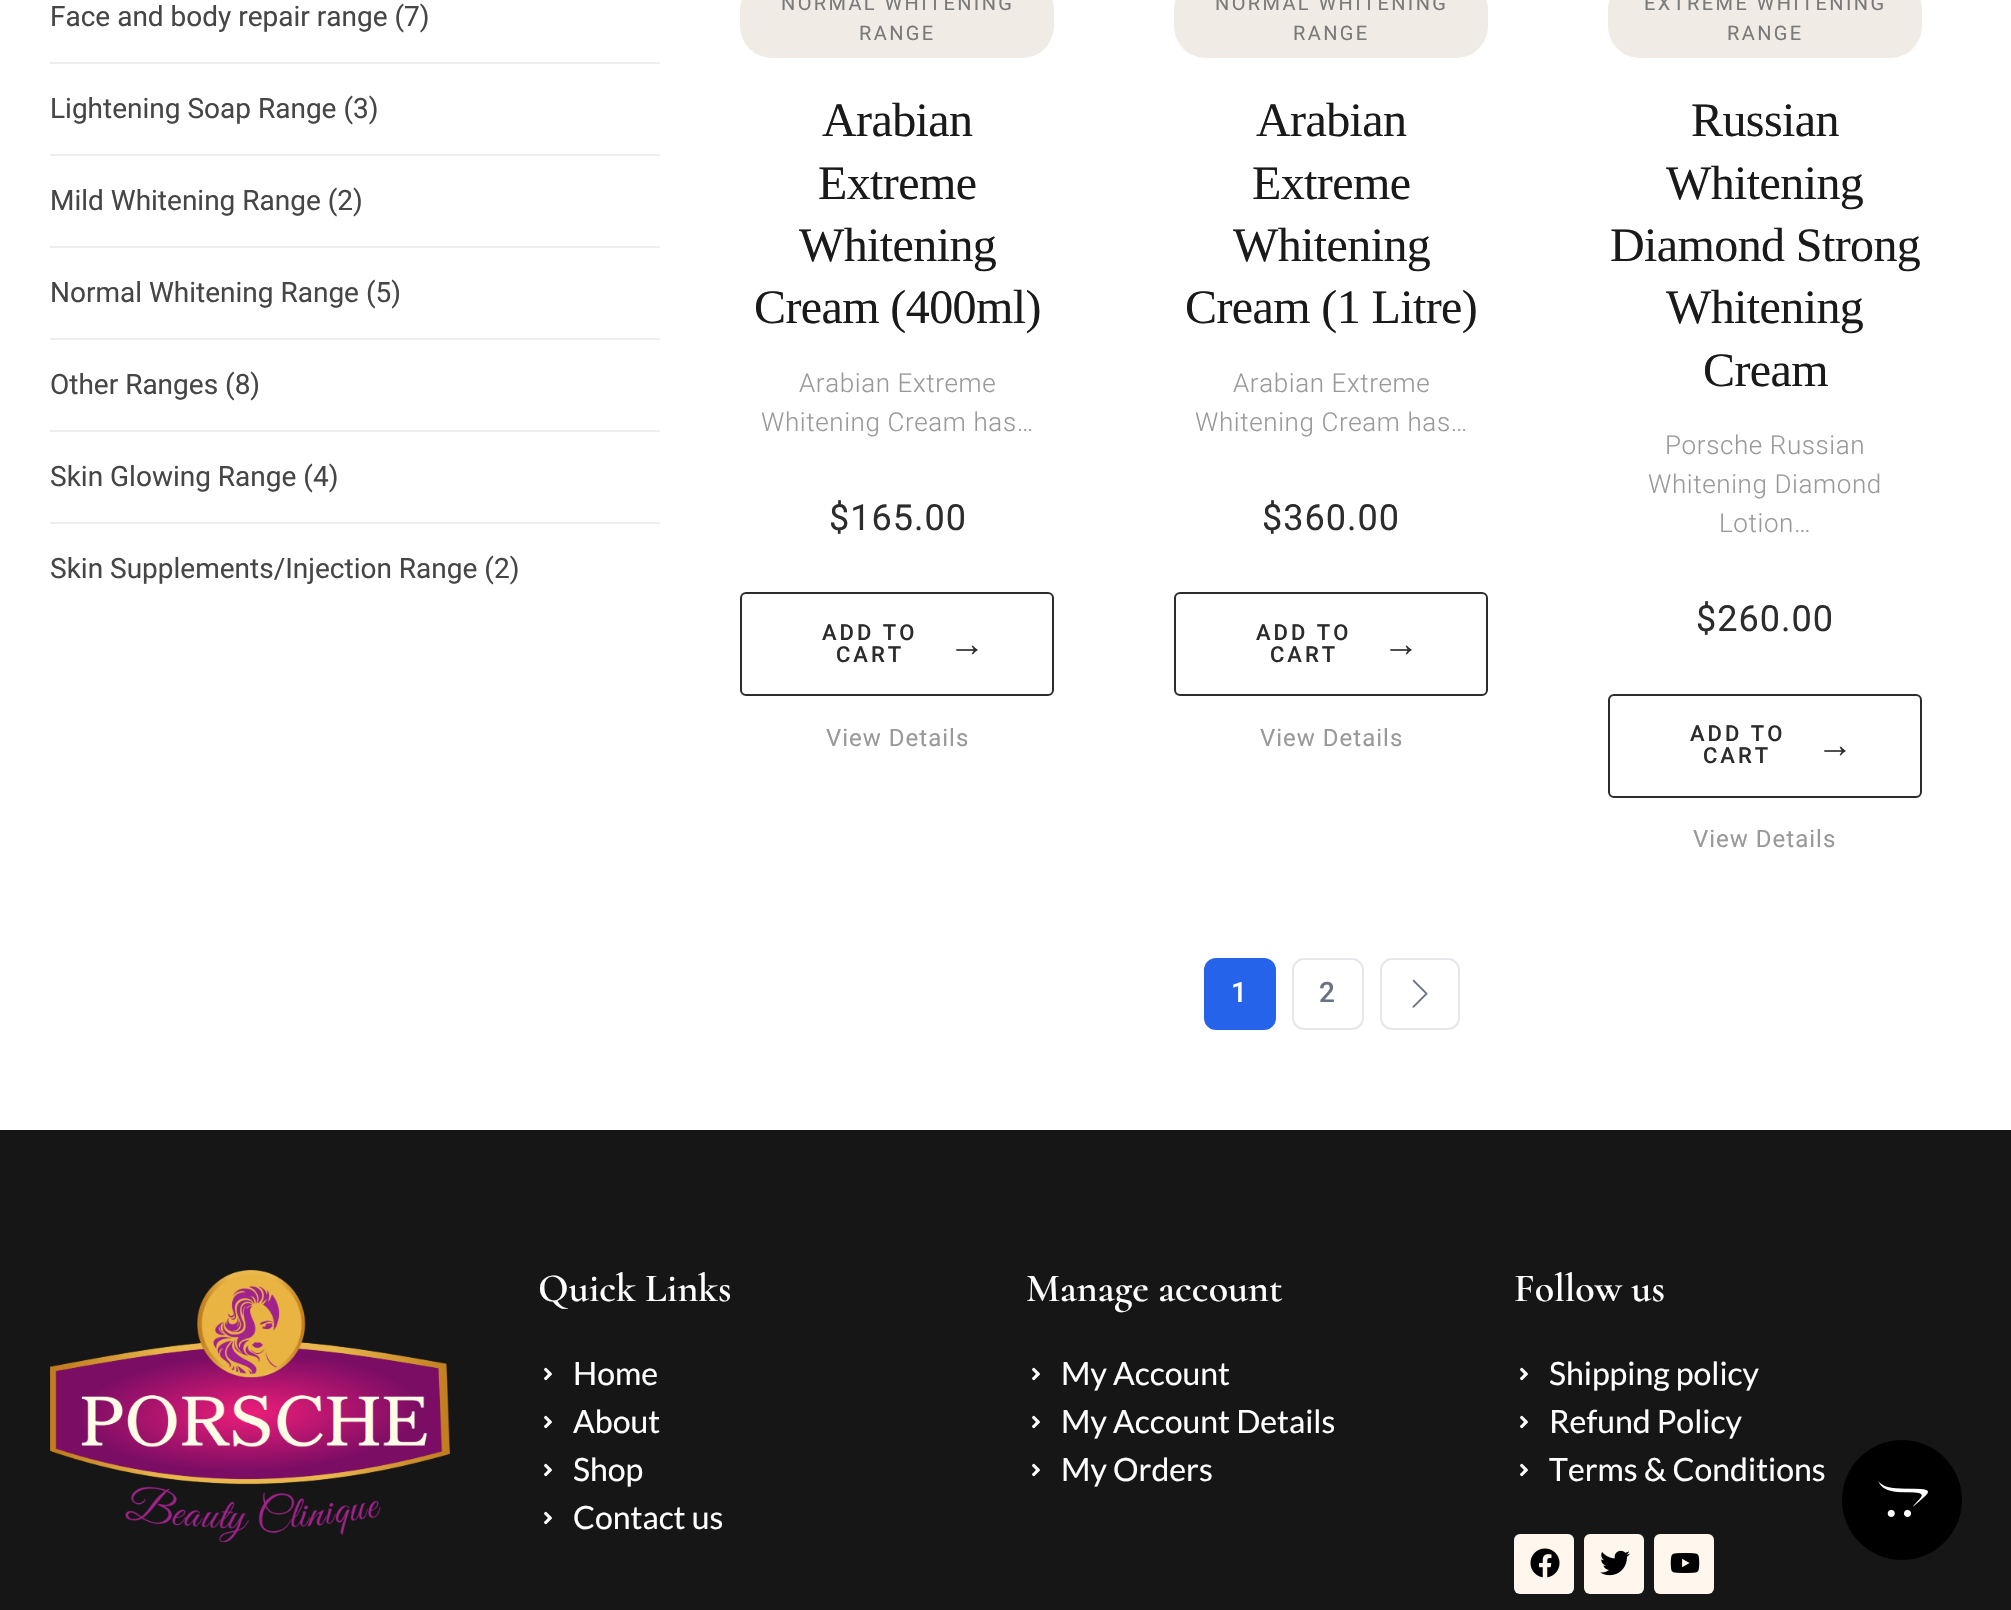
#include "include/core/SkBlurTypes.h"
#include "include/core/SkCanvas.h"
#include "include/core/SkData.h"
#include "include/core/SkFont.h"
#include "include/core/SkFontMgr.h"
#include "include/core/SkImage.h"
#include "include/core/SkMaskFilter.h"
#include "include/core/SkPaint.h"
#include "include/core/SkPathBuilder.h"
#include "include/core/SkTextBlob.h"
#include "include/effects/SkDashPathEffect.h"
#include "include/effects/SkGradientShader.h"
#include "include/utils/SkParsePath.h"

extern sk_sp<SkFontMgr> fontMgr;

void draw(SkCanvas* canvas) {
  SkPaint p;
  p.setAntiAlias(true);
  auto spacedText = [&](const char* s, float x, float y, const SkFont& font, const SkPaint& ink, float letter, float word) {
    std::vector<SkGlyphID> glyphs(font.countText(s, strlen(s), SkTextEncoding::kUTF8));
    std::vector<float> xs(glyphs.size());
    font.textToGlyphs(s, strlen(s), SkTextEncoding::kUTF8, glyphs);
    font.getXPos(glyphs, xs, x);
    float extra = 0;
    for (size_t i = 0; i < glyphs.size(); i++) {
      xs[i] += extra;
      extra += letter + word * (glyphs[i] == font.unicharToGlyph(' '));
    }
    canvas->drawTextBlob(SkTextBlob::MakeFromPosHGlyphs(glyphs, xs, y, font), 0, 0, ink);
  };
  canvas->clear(SK_ColorWHITE);
  p.setColor(SkColorSetRGB(238, 238, 238));
  canvas->drawRect(SkRect::MakeLTRB(50, 62, 660, 64), p);
  canvas->drawRect(SkRect::MakeLTRB(50, 154, 660, 156), p);
  canvas->drawRect(SkRect::MakeLTRB(50, 246, 660, 248), p);
  canvas->drawRect(SkRect::MakeLTRB(50, 338, 660, 340), p);
  canvas->drawRect(SkRect::MakeLTRB(50, 430, 660, 432), p);
  canvas->drawRect(SkRect::MakeLTRB(50, 522, 660, 524), p);
  p.setColor(SkColorSetRGB(240, 235, 229));
  canvas->drawRoundRect(SkRect::MakeLTRB(740, -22, 1054, 58), 32, 32, p);
  p.setStyle(SkPaint::kStroke_Style);
  p.setStrokeWidth(2);
  p.setColor(SkColorSetRGB(44, 44, 44));
  canvas->drawRoundRect(SkRect::MakeLTRB(741, 593, 1053, 695), 5, 5, p);
  p.setStyle(SkPaint::kFill_Style);
  p.setColor(SkColorSetRGB(240, 235, 229));
  canvas->drawRoundRect(SkRect::MakeLTRB(1174, -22, 1488, 58), 32, 32, p);
  p.setStyle(SkPaint::kStroke_Style);
  p.setColor(SkColorSetRGB(44, 44, 44));
  canvas->drawRoundRect(SkRect::MakeLTRB(1175, 593, 1487, 695), 5, 5, p);
  p.setStyle(SkPaint::kFill_Style);
  p.setColor(SkColorSetRGB(240, 235, 229));
  canvas->drawRoundRect(SkRect::MakeLTRB(1608, -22, 1922, 58), 32, 32, p);
  p.setStyle(SkPaint::kStroke_Style);
  p.setColor(SkColorSetRGB(44, 44, 44));
  canvas->drawRoundRect(SkRect::MakeLTRB(1609, 695, 1921, 797), 5, 5, p);
  p.setStyle(SkPaint::kFill_Style);
  p.setColor(SkColorSetRGB(37, 99, 235));
  canvas->drawRoundRect(SkRect::MakeLTRB(1205, 959, 1275, 1029), 11, 11, p);
  p.setStyle(SkPaint::kStroke_Style);
  canvas->drawRoundRect(SkRect::MakeLTRB(1205, 959, 1275, 1029), 11, 11, p);
  p.setColor(SkColorSetRGB(229, 231, 235));
  canvas->drawRoundRect(SkRect::MakeLTRB(1293, 959, 1363, 1029), 11, 11, p);
  canvas->drawRoundRect(SkRect::MakeLTRB(1381, 959, 1459, 1029), 11, 11, p);
  canvas->drawImageRect(SkImages::DeferredFromEncodedData(SkData::MakeFromFileName("images/1.png")), SkRect::MakeLTRB(1412, 979, 1428, 1008), SkSamplingOptions());
  p.setStyle(SkPaint::kFill_Style);
  p.setColor(SkColorSetRGB(22, 22, 22));
  canvas->drawRect(SkRect::MakeLTRB(0, 1130, 2011, 1610), p);
  canvas->drawImageRect(SkImages::DeferredFromEncodedData(SkData::MakeFromFileName("images/2.png")), SkRect::MakeLTRB(50, 1270, 450, 1542), SkSamplingOptions());
  canvas->drawImageRect(SkImages::DeferredFromEncodedData(SkData::MakeFromFileName("images/3.png")), SkRect::MakeLTRB(544, 1367, 552, 1381), SkSamplingOptions());
  canvas->drawImageRect(SkImages::DeferredFromEncodedData(SkData::MakeFromFileName("images/3.png")), SkRect::MakeLTRB(544, 1415, 552, 1429), SkSamplingOptions());
  canvas->drawImageRect(SkImages::DeferredFromEncodedData(SkData::MakeFromFileName("images/3.png")), SkRect::MakeLTRB(544, 1463, 552, 1477), SkSamplingOptions());
  canvas->drawImageRect(SkImages::DeferredFromEncodedData(SkData::MakeFromFileName("images/3.png")), SkRect::MakeLTRB(544, 1511, 552, 1525), SkSamplingOptions());
  canvas->drawImageRect(SkImages::DeferredFromEncodedData(SkData::MakeFromFileName("images/3.png")), SkRect::MakeLTRB(1032, 1367, 1040, 1381), SkSamplingOptions());
  canvas->drawImageRect(SkImages::DeferredFromEncodedData(SkData::MakeFromFileName("images/3.png")), SkRect::MakeLTRB(1032, 1415, 1040, 1429), SkSamplingOptions());
  canvas->drawImageRect(SkImages::DeferredFromEncodedData(SkData::MakeFromFileName("images/3.png")), SkRect::MakeLTRB(1032, 1463, 1040, 1477), SkSamplingOptions());
  canvas->drawImageRect(SkImages::DeferredFromEncodedData(SkData::MakeFromFileName("images/3.png")), SkRect::MakeLTRB(1520, 1367, 1528, 1381), SkSamplingOptions());
  canvas->drawImageRect(SkImages::DeferredFromEncodedData(SkData::MakeFromFileName("images/3.png")), SkRect::MakeLTRB(1520, 1415, 1528, 1429), SkSamplingOptions());
  canvas->drawImageRect(SkImages::DeferredFromEncodedData(SkData::MakeFromFileName("images/3.png")), SkRect::MakeLTRB(1520, 1463, 1528, 1477), SkSamplingOptions());
  p.setColor(SkColorSetRGB(255, 247, 238));
  canvas->drawRoundRect(SkRect::MakeLTRB(1514, 1534, 1574, 1594), 6, 6, p);
  canvas->drawImageRect(SkImages::DeferredFromEncodedData(SkData::MakeFromFileName("images/4.png")), SkRect::MakeLTRB(1530, 1548, 1560, 1578), SkSamplingOptions());
  canvas->drawRoundRect(SkRect::MakeLTRB(1584, 1534, 1644, 1594), 6, 6, p);
  canvas->drawImageRect(SkImages::DeferredFromEncodedData(SkData::MakeFromFileName("images/5.png")), SkRect::MakeLTRB(1600, 1550, 1630, 1576), SkSamplingOptions());
  canvas->drawRoundRect(SkRect::MakeLTRB(1654, 1534, 1714, 1594), 6, 6, p);
  canvas->drawImageRect(SkImages::DeferredFromEncodedData(SkData::MakeFromFileName("images/6.png")), SkRect::MakeLTRB(1670, 1553, 1700, 1573), SkSamplingOptions());
  p.setColor(SK_ColorBLACK);
  canvas->drawCircle(1902, 1500, 60, p);
  canvas->drawImageRect(SkImages::DeferredFromEncodedData(SkData::MakeFromFileName("images/7.png")), SkRect::MakeLTRB(1878, 1481, 1928, 1517), SkSamplingOptions());
  SkFont font1(fontMgr->matchFamilyStyle("Roboto", SkFontStyle::Normal()), 28);
  font1.setSubpixel(true);
  p.setColor(SkColorSetRGB(70, 70, 70));
  canvas->drawString("Face and body repair range (7)", 50, 26, font1, p);
  canvas->drawString("Lightening Soap Range (3)", 50, 118, font1, p);
  canvas->drawString("Mild Whitening Range (2)", 50, 210, font1, p);
  canvas->drawString("Normal Whitening Range (5)", 50, 302, font1, p);
  canvas->drawString("Other Ranges (8)", 50, 394, font1, p);
  canvas->drawString("Skin Glowing Range (4)", 50, 486, font1, p);
  canvas->drawString("Skin Supplements/Injection Range (2)", 50, 578, font1, p);
  SkFont font2(fontMgr->matchFamilyStyle("Roboto", SkFontStyle::Normal()), 20);
  font2.setSubpixel(true);
  p.setColor(SkColorSetRGB(122, 122, 122));
  spacedText("NORMAL WHITENING", 781, 10, font2, p, 2.4f, 0);
  spacedText("RANGE", 859, 40, font2, p, 2.4f, 0);
  SkFont font3(fontMgr->matchFamilyStyle("Liberation Serif", SkFontStyle::Normal()), 48);
  font3.setSubpixel(true);
  p.setColor(SkColorSetRGB(26, 26, 26));
  spacedText("Arabian", 822, 136, font3, p, -0.6f, 0);
  spacedText("Extreme", 818, 199, font3, p, -0.6f, 0);
  spacedText("Whitening", 799, 261, font3, p, -0.6f, 0);
  spacedText("Cream (400ml)", 754, 323, font3, p, -0.6f, 0);
  SkFont font4(fontMgr->matchFamilyStyle("Roboto", SkFontStyle(300, SkFontStyle::kNormal_Width, SkFontStyle::kUpright_Slant)), 26);
  font4.setSubpixel(true);
  p.setColor(SkColorSetRGB(153, 153, 153));
  spacedText("Arabian Extreme", 799, 392, font4, p, 0.6f, 0);
  spacedText("Whitening Cream has…", 761, 431, font4, p, 0.6f, 0);
  SkFont font5(fontMgr->matchFamilyStyle("Roboto", SkFontStyle::Normal()), 36);
  font5.setSubpixel(true);
  p.setColor(SkColorSetRGB(44, 44, 44));
  spacedText("$165.00", 829, 530, font5, p, 1, 0);
  SkFont font6(fontMgr->matchFamilyStyle("Roboto", SkFontStyle(500, SkFontStyle::kNormal_Width, SkFontStyle::kUpright_Slant)), 22);
  font6.setSubpixel(true);
  spacedText("ADD TO", 822, 640, font6, p, 3, 0);
  spacedText("CART", 836, 662, font6, p, 3, 0);
  SkFont font7(fontMgr->matchFamilyStyle("Liberation Sans", SkFontStyle::Normal()), 36);
  font7.setSubpixel(true);
  spacedText("→", 949, 656, font7, p, 3, 0);
  SkFont font8(fontMgr->matchFamilyStyle("Roboto", SkFontStyle::Normal()), 24);
  font8.setSubpixel(true);
  p.setColor(SkColorSetRGB(153, 153, 153));
  spacedText("View Details", 826, 746, font8, p, 1, 0);
  p.setColor(SkColorSetRGB(122, 122, 122));
  spacedText("NORMAL WHITENING", 1215, 10, font2, p, 2.4f, 0);
  spacedText("RANGE", 1293, 40, font2, p, 2.4f, 0);
  p.setColor(SkColorSetRGB(26, 26, 26));
  spacedText("Arabian", 1256, 136, font3, p, -0.6f, 0);
  spacedText("Extreme", 1252, 199, font3, p, -0.6f, 0);
  spacedText("Whitening", 1233, 261, font3, p, -0.6f, 0);
  spacedText("Cream (1 Litre)", 1185, 323, font3, p, -0.6f, 0);
  p.setColor(SkColorSetRGB(153, 153, 153));
  spacedText("Arabian Extreme", 1233, 392, font4, p, 0.6f, 0);
  spacedText("Whitening Cream has…", 1195, 431, font4, p, 0.6f, 0);
  p.setColor(SkColorSetRGB(44, 44, 44));
  spacedText("$360.00", 1262, 530, font5, p, 1, 0);
  spacedText("ADD TO", 1256, 640, font6, p, 3, 0);
  spacedText("CART", 1270, 662, font6, p, 3, 0);
  spacedText("→", 1383, 656, font7, p, 3, 0);
  p.setColor(SkColorSetRGB(153, 153, 153));
  spacedText("View Details", 1260, 746, font8, p, 1, 0);
  p.setColor(SkColorSetRGB(122, 122, 122));
  spacedText("EXTREME WHITENING", 1644, 10, font2, p, 2.4f, 0);
  spacedText("RANGE", 1727, 40, font2, p, 2.4f, 0);
  p.setColor(SkColorSetRGB(26, 26, 26));
  spacedText("Russian", 1691, 136, font3, p, -0.6f, 0);
  spacedText("Whitening", 1666, 199, font3, p, -0.6f, 0);
  spacedText("Diamond Strong", 1610, 261, font3, p, -0.6f, 0);
  spacedText("Whitening", 1666, 323, font3, p, -0.6f, 0);
  spacedText("Cream", 1703, 386, font3, p, -0.6f, 0);
  p.setColor(SkColorSetRGB(153, 153, 153));
  spacedText("Porsche Russian", 1665, 454, font4, p, 0.6f, 0);
  spacedText("Whitening Diamond", 1648, 493, font4, p, 0.6f, 0);
  spacedText("Lotion…", 1719, 532, font4, p, 0.6f, 0);
  p.setColor(SkColorSetRGB(44, 44, 44));
  spacedText("$260.00", 1696, 631, font5, p, 1, 0);
  spacedText("ADD TO", 1690, 741, font6, p, 3, 0);
  spacedText("CART", 1703, 763, font6, p, 3, 0);
  spacedText("→", 1817, 757, font7, p, 3, 0);
  p.setColor(SkColorSetRGB(153, 153, 153));
  spacedText("View Details", 1693, 847, font8, p, 1, 0);
  SkFont font9(fontMgr->matchFamilyStyle("Roboto", SkFontStyle(500, SkFontStyle::kNormal_Width, SkFontStyle::kUpright_Slant)), 28);
  font9.setSubpixel(true);
  p.setColor(SK_ColorWHITE);
  canvas->drawString("1", 1231, 1002, font9, p);
  p.setColor(SkColorSetRGB(107, 114, 128));
  canvas->drawString("2", 1319, 1002, font9, p);
  SkFont font10(fontMgr->matchFamilyStyle("Cormorant", SkFontStyle(600, SkFontStyle::kNormal_Width, SkFontStyle::kUpright_Slant)), 40);
  font10.setSubpixel(true);
  p.setColor(SK_ColorWHITE);
  canvas->drawString("Quick Links", 538, 1301, font10, p);
  SkFont font11(fontMgr->matchFamilyStyle("Lato", SkFontStyle::Normal()), 32);
  font11.setSubpixel(true);
  canvas->drawString("Home", 573, 1385, font11, p);
  canvas->drawString("About", 573, 1433, font11, p);
  canvas->drawString("Shop", 573, 1481, font11, p);
  canvas->drawString("Contact us", 573, 1529, font11, p);
  canvas->drawString("Manage account", 1026, 1301, font10, p);
  canvas->drawString("My Account", 1061, 1385, font11, p);
  canvas->drawString("My Account Details", 1061, 1433, font11, p);
  canvas->drawString("My Orders", 1061, 1481, font11, p);
  canvas->drawString("Follow us", 1514, 1301, font10, p);
  canvas->drawString("Shipping policy", 1549, 1385, font11, p);
  canvas->drawString("Refund Policy", 1549, 1433, font11, p);
  canvas->drawString("Terms & Conditions", 1549, 1481, font11, p);
}
